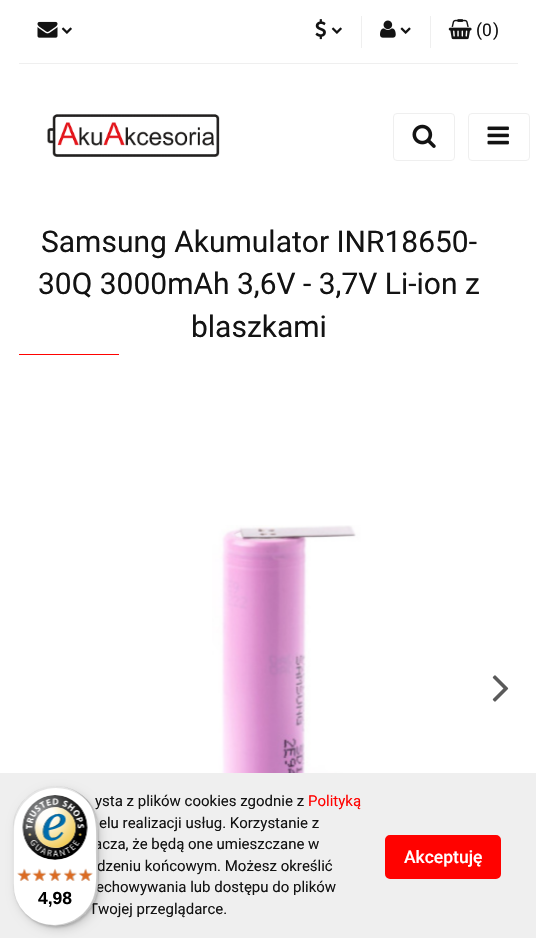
#include "include/core/SkBlurTypes.h"
#include "include/core/SkCanvas.h"
#include "include/core/SkData.h"
#include "include/core/SkFont.h"
#include "include/core/SkFontMgr.h"
#include "include/core/SkImage.h"
#include "include/core/SkMaskFilter.h"
#include "include/core/SkPaint.h"
#include "include/core/SkPathBuilder.h"
#include "include/core/SkTextBlob.h"
#include "include/effects/SkDashPathEffect.h"
#include "include/effects/SkGradientShader.h"
#include "include/utils/SkParsePath.h"

extern sk_sp<SkFontMgr> fontMgr;

void draw(SkCanvas* canvas) {
  SkPaint p;
  p.setAntiAlias(true);
  canvas->clear(SK_ColorWHITE);
  p.setColor(SkColorSetRGB(239, 239, 239));
  canvas->drawRect(SkRect::MakeLTRB(19, 63, 518, 64), p);
  canvas->drawImageRect(SkImages::DeferredFromEncodedData(SkData::MakeFromFileName("images/1.png")), SkRect::MakeLTRB(37, 21, 58, 38), SkSamplingOptions());
  canvas->drawImageRect(SkImages::DeferredFromEncodedData(SkData::MakeFromFileName("images/2.png")), SkRect::MakeLTRB(61, 27, 72, 34), SkSamplingOptions());
  canvas->drawImageRect(SkImages::DeferredFromEncodedData(SkData::MakeFromFileName("images/3.png")), SkRect::MakeLTRB(315, 19, 326, 40), SkSamplingOptions());
  canvas->drawImageRect(SkImages::DeferredFromEncodedData(SkData::MakeFromFileName("images/2.png")), SkRect::MakeLTRB(331, 27, 342, 34), SkSamplingOptions());
  canvas->drawRect(SkRect::MakeLTRB(361, 16, 362, 48), p);
  canvas->drawImageRect(SkImages::DeferredFromEncodedData(SkData::MakeFromFileName("images/4.png")), SkRect::MakeLTRB(380, 20, 396, 38), SkSamplingOptions());
  canvas->drawImageRect(SkImages::DeferredFromEncodedData(SkData::MakeFromFileName("images/5.png")), SkRect::MakeLTRB(400, 27, 411, 34), SkSamplingOptions());
  canvas->drawRect(SkRect::MakeLTRB(430, 16, 431, 48), p);
  canvas->drawImageRect(SkImages::DeferredFromEncodedData(SkData::MakeFromFileName("images/6.png")), SkRect::MakeLTRB(448, 19, 472, 40), SkSamplingOptions());
  canvas->drawImageRect(SkImages::DeferredFromEncodedData(SkData::MakeFromFileName("images/7.png")), SkRect::MakeLTRB(47, 114, 220, 157), SkSamplingOptions());
  p.setStyle(SkPaint::kStroke_Style);
  p.setStrokeWidth(1);
  canvas->drawRoundRect(SkRect::MakeLTRB(393.5f, 113.5f, 454.5f, 160.5f), 3.5f, 3.5f, p);
  canvas->drawImageRect(SkImages::DeferredFromEncodedData(SkData::MakeFromFileName("images/8.png")), SkRect::MakeLTRB(412, 124, 436, 148), SkSamplingOptions());
  canvas->drawRoundRect(SkRect::MakeLTRB(468.5f, 113.5f, 529.5f, 160.5f), 3.5f, 3.5f, p);
  canvas->drawImageRect(SkImages::DeferredFromEncodedData(SkData::MakeFromFileName("images/9.png")), SkRect::MakeLTRB(487, 126, 509, 145), SkSamplingOptions());
  p.setStyle(SkPaint::kFill_Style);
  p.setColor(SkColorSetRGB(255, 2, 0));
  canvas->drawRect(SkRect::MakeLTRB(19, 354, 119, 355), p);
  canvas->drawImageRect(SkImages::DeferredFromEncodedData(SkData::MakeFromFileName("images/10.png")), SkRect::MakeLTRB(212, 525, 467, 773), SkSamplingOptions());
  canvas->drawImageRect(SkImages::DeferredFromEncodedData(SkData::MakeFromFileName("images/11.png")), SkRect::MakeLTRB(492, 675, 509, 702), SkSamplingOptions());
  p.setColor(SkColorSetRGB(239, 239, 239));
  canvas->drawRect(SkRect::MakeLTRB(0, 773, 536, 938), p);
  p.setColor(SkColorSetARGB(38, 0, 0, 0));
  p.setMaskFilter(SkMaskFilter::MakeBlur(kNormal_SkBlurStyle, 5));
  canvas->drawRoundRect(SkRect::MakeLTRB(16, 790, 101, 930), 42.5f, 42.5f, p);
  p.setMaskFilter(nullptr);
  p.setMaskFilter(SkMaskFilter::MakeBlur(kNormal_SkBlurStyle, 1));
  canvas->drawRoundRect(SkRect::MakeLTRB(14, 788, 99, 928), 42.5f, 42.5f, p);
  p.setMaskFilter(nullptr);
  p.setColor(SkColorSetRGB(255, 2, 0));
  canvas->drawRoundRect(SkRect::MakeLTRB(387, 837, 499, 877), 3, 3, p);
  p.setStyle(SkPaint::kStroke_Style);
  p.setStrokeWidth(4);
  canvas->drawRoundRect(SkRect::MakeLTRB(387, 837, 499, 877), 3, 3, p);
  SkFont font1(fontMgr->matchFamilyStyle("Roboto", SkFontStyle::Normal()), 17.5f);
  font1.setSubpixel(true);
  p.setStyle(SkPaint::kFill_Style);
  p.setColor(SkColorSetRGB(19, 19, 19));
  canvas->drawString("(", 476, 36, font1, p);
  canvas->drawString("0", 482, 36, font1, p);
  canvas->drawString(")", 493, 36, font1, p);
  SkFont font2(fontMgr->matchFamilyStyle("Roboto", SkFontStyle::Normal()), 30);
  font2.setSubpixel(true);
  canvas->drawString("Samsung Akumulator INR18650-", 41, 252, font2, p);
  canvas->drawString("30Q 3000mAh 3,6V - 3,7V Li-ion z", 38, 294, font2, p);
  canvas->drawString("blaszkami", 191, 337, font2, p);
  SkFont font3(fontMgr->matchFamilyStyle("Roboto", SkFontStyle::Normal()), 15);
  font3.setSubpixel(true);
  canvas->drawString("ysta z plików cookies zgodnie z", 95, 806, font3, p);
  p.setColor(SkColorSetRGB(255, 2, 0));
  canvas->drawString("Polityką", 308, 806, font3, p);
  p.setColor(SkColorSetRGB(19, 19, 19));
  canvas->drawString("elu realizacji usług. Korzystanie z", 99, 828, font3, p);
  canvas->drawString("acza, że będą one umieszczane w", 94, 849, font3, p);
  canvas->drawString("dzeniu końcowym. Możesz określić", 97, 871, font3, p);
  canvas->drawString("echowywania lub dostępu do plików", 96, 892, font3, p);
  canvas->drawString("Twojej przeglądarce.", 89, 914, font3, p);
  p.setColor(SK_ColorWHITE);
  canvas->drawRoundRect(SkRect::MakeLTRB(13, 786, 98, 926), 42.5f, 42.5f, p);
  p.setColor(SkColorSetARGB(26, 0, 0, 0));
  canvas->drawPath(SkPathBuilder().moveTo(56, 788).cubicTo(72, 788, 86, 797, 93, 809).cubicTo(86, 795, 72, 786, 56, 786).cubicTo(32, 786, 13, 805, 13, 828).lineTo(13, 884).cubicTo(13, 893, 16, 901, 21, 908).cubicTo(16, 901, 14, 893, 14, 885).lineTo(14, 830).cubicTo(14, 807, 33, 788, 56, 788).close().detach(), p);
  p.setColor(SkColorSetARGB(51, 0, 0, 0));
  canvas->drawPath(SkPathBuilder().moveTo(34, 920).cubicTo(59, 935, 91, 921, 97, 892).cubicTo(99, 882, 98, 867, 98, 856).cubicTo(98, 830, 102, 804, 75, 791).cubicTo(100, 805, 96, 830, 96, 855).cubicTo(96, 866, 97, 880, 95, 891).cubicTo(90, 919, 59, 933, 34, 920).close().detach(), p);
  p.setColor(SkColorSetARGB(51, 50, 50, 50));
  canvas->drawPath(SkPathBuilder().moveTo(56, 786).lineTo(55, 786).cubicTo(78, 786, 97, 805, 97, 828).lineTo(97, 883).cubicTo(97, 906, 78, 926, 55, 926).lineTo(56, 926).cubicTo(79, 926, 98, 907, 98, 884).lineTo(98, 828).cubicTo(98, 805, 79, 786, 56, 786).close().detach(), p);
  p.setColor(SkColorSetARGB(77, 255, 255, 255));
  canvas->drawPath(SkPathBuilder().moveTo(56, 786).lineTo(55, 786).cubicTo(78, 786, 97, 805, 97, 828).lineTo(97, 883).cubicTo(97, 907, 78, 926, 55, 926).lineTo(56, 926).cubicTo(79, 926, 98, 907, 98, 884).lineTo(98, 828).cubicTo(98, 805, 79, 786, 56, 786).close().detach(), p);
  canvas->drawImageRect(SkImages::DeferredFromEncodedData(SkData::MakeFromFileName("images/22.png")), SkRect::MakeLTRB(79, 869, 93, 881), SkSamplingOptions());
  canvas->drawImageRect(SkImages::DeferredFromEncodedData(SkData::MakeFromFileName("images/17.png")), SkRect::MakeLTRB(78, 868, 93, 881), SkSamplingOptions());
  canvas->drawImageRect(SkImages::DeferredFromEncodedData(SkData::MakeFromFileName("images/21.png")), SkRect::MakeLTRB(64, 869, 77, 881), SkSamplingOptions());
  canvas->drawImageRect(SkImages::DeferredFromEncodedData(SkData::MakeFromFileName("images/16.png")), SkRect::MakeLTRB(63, 868, 77, 881), SkSamplingOptions());
  canvas->drawImageRect(SkImages::DeferredFromEncodedData(SkData::MakeFromFileName("images/20.png")), SkRect::MakeLTRB(49, 869, 61, 881), SkSamplingOptions());
  canvas->drawImageRect(SkImages::DeferredFromEncodedData(SkData::MakeFromFileName("images/15.png")), SkRect::MakeLTRB(48, 868, 62, 881), SkSamplingOptions());
  canvas->drawImageRect(SkImages::DeferredFromEncodedData(SkData::MakeFromFileName("images/19.png")), SkRect::MakeLTRB(34, 869, 46, 881), SkSamplingOptions());
  canvas->drawImageRect(SkImages::DeferredFromEncodedData(SkData::MakeFromFileName("images/14.png")), SkRect::MakeLTRB(32, 868, 47, 881), SkSamplingOptions());
  canvas->drawImageRect(SkImages::DeferredFromEncodedData(SkData::MakeFromFileName("images/18.png")), SkRect::MakeLTRB(17, 869, 31, 881), SkSamplingOptions());
  canvas->drawImageRect(SkImages::DeferredFromEncodedData(SkData::MakeFromFileName("images/13.png")), SkRect::MakeLTRB(17, 868, 32, 881), SkSamplingOptions());
  SkFont font4(fontMgr->matchFamilyStyle("Liberation Sans", SkFontStyle::Bold()), 17.5f);
  font4.setSubpixel(true);
  p.setColor(SK_ColorBLACK);
  canvas->drawString("4,98", 38, 904, font4, p);
  canvas->drawImageRect(SkImages::DeferredFromEncodedData(SkData::MakeFromFileName("images/12.png")), SkRect::MakeLTRB(22, 795, 88, 860), SkSamplingOptions());
  SkFont font5(fontMgr->matchFamilyStyle("Roboto", SkFontStyle(500, SkFontStyle::kNormal_Width, SkFontStyle::kUpright_Slant)), 17.5f);
  font5.setSubpixel(true);
  p.setColor(SK_ColorWHITE);
  canvas->drawString("Akceptuję", 404, 863, font5, p);
}
